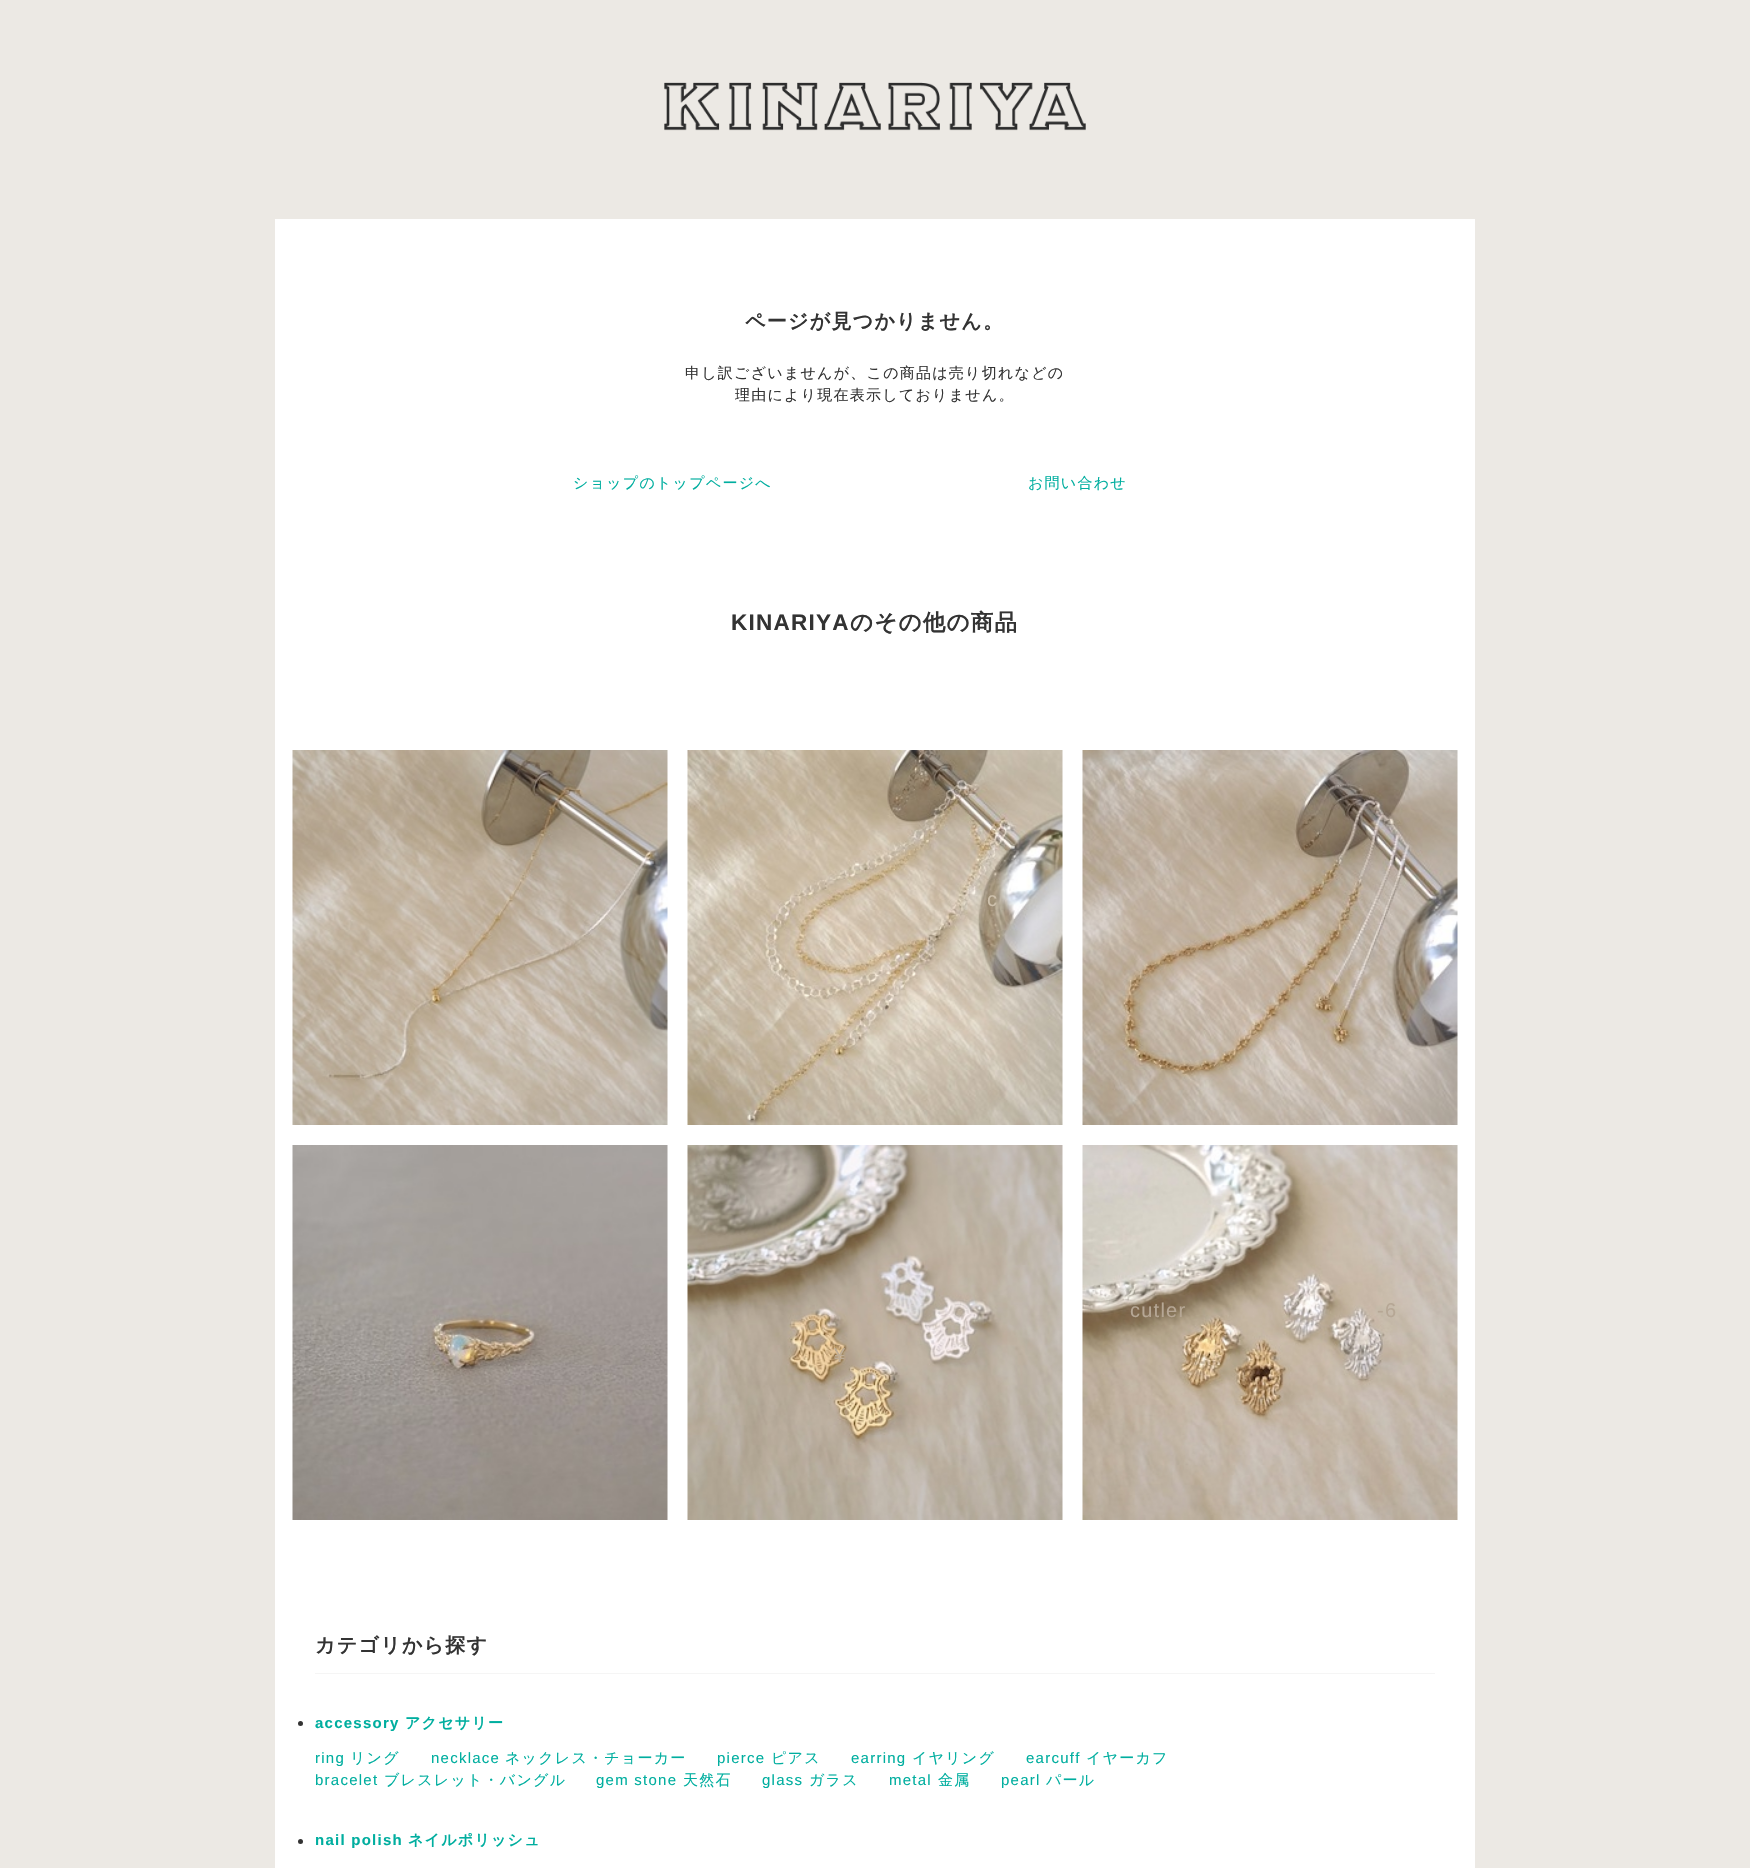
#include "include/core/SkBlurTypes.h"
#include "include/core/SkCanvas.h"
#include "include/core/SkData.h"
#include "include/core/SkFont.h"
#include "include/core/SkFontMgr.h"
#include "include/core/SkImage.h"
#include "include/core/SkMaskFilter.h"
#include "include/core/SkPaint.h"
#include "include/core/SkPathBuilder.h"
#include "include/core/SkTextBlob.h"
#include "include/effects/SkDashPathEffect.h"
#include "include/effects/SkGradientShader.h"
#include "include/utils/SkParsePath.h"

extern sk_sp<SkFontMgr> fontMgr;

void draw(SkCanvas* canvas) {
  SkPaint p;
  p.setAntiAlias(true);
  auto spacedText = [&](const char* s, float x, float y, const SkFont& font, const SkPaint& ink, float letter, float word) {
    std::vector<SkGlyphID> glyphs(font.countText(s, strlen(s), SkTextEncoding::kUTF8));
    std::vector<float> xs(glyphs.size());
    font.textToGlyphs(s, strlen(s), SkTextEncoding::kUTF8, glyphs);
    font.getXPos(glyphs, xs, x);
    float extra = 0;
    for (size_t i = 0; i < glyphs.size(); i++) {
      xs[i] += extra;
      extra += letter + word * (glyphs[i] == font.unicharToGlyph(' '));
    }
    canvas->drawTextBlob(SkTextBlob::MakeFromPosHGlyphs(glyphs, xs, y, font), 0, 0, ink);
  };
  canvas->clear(SkColorSetRGB(236, 233, 228));
  canvas->drawImageRect(SkImages::DeferredFromEncodedData(SkData::MakeFromFileName("images/1.png")), SkRect::MakeLTRB(664, 82, 1086, 131), SkSamplingOptions());
  p.setColor(SK_ColorWHITE);
  canvas->drawRect(SkRect::MakeLTRB(275, 219, 1475, 1868), p);
  canvas->drawImageRect(SkImages::DeferredFromEncodedData(SkData::MakeFromFileName("images/2.png")), SkRect::MakeLTRB(292, 750, 668, 1125), SkSamplingOptions());
  canvas->drawImageRect(SkImages::DeferredFromEncodedData(SkData::MakeFromFileName("images/3.png")), SkRect::MakeLTRB(687, 750, 1063, 1125), SkSamplingOptions());
  canvas->drawImageRect(SkImages::DeferredFromEncodedData(SkData::MakeFromFileName("images/4.png")), SkRect::MakeLTRB(1082, 750, 1458, 1125), SkSamplingOptions());
  canvas->drawImageRect(SkImages::DeferredFromEncodedData(SkData::MakeFromFileName("images/5.png")), SkRect::MakeLTRB(292, 1145, 668, 1520), SkSamplingOptions());
  canvas->drawImageRect(SkImages::DeferredFromEncodedData(SkData::MakeFromFileName("images/6.png")), SkRect::MakeLTRB(1082, 1145, 1458, 1520), SkSamplingOptions());
  canvas->drawImageRect(SkImages::DeferredFromEncodedData(SkData::MakeFromFileName("images/7.png")), SkRect::MakeLTRB(687, 1145, 1063, 1520), SkSamplingOptions());
  p.setColor(SkColorSetRGB(245, 245, 245));
  canvas->drawRect(SkRect::MakeLTRB(315, 1673, 1435, 1674), p);
  p.setColor(SkColorSetRGB(51, 51, 51));
  canvas->drawCircle(300.5f, 1723.5f, 2.5f, p);
  canvas->drawCircle(300.5f, 1841.5f, 2.5f, p);
  SkFont font1(fontMgr->matchFamilyStyle("WenQuanYi Zen Hei", SkFontStyle::Bold()), 20);
  font1.setSubpixel(true);
  spacedText("ページが見つかりません。", 745, 328, font1, p, 1.25f, 0);
  SkFont font2(fontMgr->matchFamilyStyle("WenQuanYi Zen Hei", SkFontStyle(500, SkFontStyle::kNormal_Width, SkFontStyle::kUpright_Slant)), 15);
  font2.setSubpixel(true);
  spacedText("申し訳ございませんが、この商品は売り切れなどの", 685, 378, font2, p, 1.25f, 0);
  spacedText("理由により現在表示しておりません。", 735, 400, font2, p, 1.25f, 0);
  p.setColor(SkColorSetRGB(0, 174, 159));
  spacedText("ショップのトップページへ", 573, 488, font2, p, 1.25f, 0);
  spacedText("お問い合わせ", 1028, 488, font2, p, 1.25f, 0);
  SkFont font3(fontMgr->matchFamilyStyle("Liberation Sans", SkFontStyle::Bold()), 22.5f);
  font3.setSubpixel(true);
  p.setColor(SkColorSetRGB(51, 51, 51));
  spacedText("KINARIYA", 731, 630, font3, p, 1.25f, 0);
  SkFont font4(fontMgr->matchFamilyStyle("WenQuanYi Zen Hei", SkFontStyle::Bold()), 22.5f);
  font4.setSubpixel(true);
  spacedText("のその他の商品", 850, 630, font4, p, 1.25f, 0);
  SkFont font5(fontMgr->matchFamilyStyle("Liberation Sans", SkFontStyle::Normal()), 20);
  font5.setSubpixel(true);
  p.setColor(SkColorSetRGB(205, 192, 172));
  spacedText("c", 987, 906, font5, p, 1.25f, 0);
  p.setColor(SkColorSetRGB(182, 167, 149));
  spacedText("cutler", 1130, 1317, font5, p, 1.25f, 0);
  spacedText("-6", 1377, 1317, font5, p, 1.25f, 0);
  p.setColor(SkColorSetRGB(190, 173, 151));
  spacedText("¥", 834, 1362, font5, p, 1.25f, 0);
  p.setColor(SkColorSetRGB(51, 51, 51));
  spacedText("カテゴリから探す", 315, 1652, font1, p, 1.25f, 0);
  SkFont font6(fontMgr->matchFamilyStyle("Liberation Sans", SkFontStyle::Bold()), 15);
  font6.setSubpixel(true);
  p.setColor(SkColorSetRGB(0, 174, 159));
  spacedText("accessory", 315, 1728, font6, p, 1.25f, 0);
  SkFont font7(fontMgr->matchFamilyStyle("WenQuanYi Zen Hei", SkFontStyle::Bold()), 15);
  font7.setSubpixel(true);
  spacedText("アクセサリー", 405, 1728, font7, p, 1.25f, 0);
  SkFont font8(fontMgr->matchFamilyStyle("Liberation Sans", SkFontStyle::Normal()), 15);
  font8.setSubpixel(true);
  spacedText("ring", 315, 1763, font8, p, 1.25f, 0);
  spacedText("リング", 350, 1763, font2, p, 1.25f, 0);
  spacedText("necklace", 431, 1763, font8, p, 1.25f, 0);
  spacedText("ネックレス・チョーカー", 505, 1763, font2, p, 1.25f, 0);
  spacedText("pierce", 717, 1763, font8, p, 1.25f, 0);
  spacedText("ピアス", 771, 1763, font2, p, 1.25f, 0);
  spacedText("earring", 851, 1763, font8, p, 1.25f, 0);
  spacedText("イヤリング", 912, 1763, font2, p, 1.25f, 0);
  spacedText("earcuff", 1026, 1763, font8, p, 1.25f, 0);
  spacedText("イヤーカフ", 1086, 1763, font2, p, 1.25f, 0);
  spacedText("bracelet", 315, 1785, font8, p, 1.25f, 0);
  spacedText("ブレスレット・バングル", 384, 1785, font2, p, 1.25f, 0);
  spacedText("gem stone", 596, 1785, font8, p, 1.25f, 0);
  spacedText("天然石", 683, 1785, font2, p, 1.25f, 0);
  spacedText("glass", 762, 1785, font8, p, 1.25f, 0);
  spacedText("ガラス", 809, 1785, font2, p, 1.25f, 0);
  spacedText("metal", 889, 1785, font8, p, 1.25f, 0);
  spacedText("金属", 938, 1785, font2, p, 1.25f, 0);
  spacedText("pearl", 1001, 1785, font8, p, 1.25f, 0);
  spacedText("パール", 1046, 1785, font2, p, 1.25f, 0);
  spacedText("nail polish", 315, 1845, font6, p, 1.25f, 0);
  spacedText("ネイルポリッシュ", 408, 1845, font7, p, 1.25f, 0);
}
